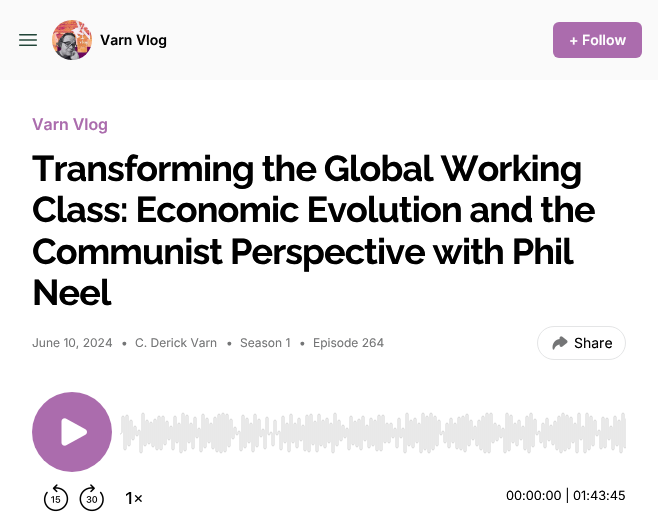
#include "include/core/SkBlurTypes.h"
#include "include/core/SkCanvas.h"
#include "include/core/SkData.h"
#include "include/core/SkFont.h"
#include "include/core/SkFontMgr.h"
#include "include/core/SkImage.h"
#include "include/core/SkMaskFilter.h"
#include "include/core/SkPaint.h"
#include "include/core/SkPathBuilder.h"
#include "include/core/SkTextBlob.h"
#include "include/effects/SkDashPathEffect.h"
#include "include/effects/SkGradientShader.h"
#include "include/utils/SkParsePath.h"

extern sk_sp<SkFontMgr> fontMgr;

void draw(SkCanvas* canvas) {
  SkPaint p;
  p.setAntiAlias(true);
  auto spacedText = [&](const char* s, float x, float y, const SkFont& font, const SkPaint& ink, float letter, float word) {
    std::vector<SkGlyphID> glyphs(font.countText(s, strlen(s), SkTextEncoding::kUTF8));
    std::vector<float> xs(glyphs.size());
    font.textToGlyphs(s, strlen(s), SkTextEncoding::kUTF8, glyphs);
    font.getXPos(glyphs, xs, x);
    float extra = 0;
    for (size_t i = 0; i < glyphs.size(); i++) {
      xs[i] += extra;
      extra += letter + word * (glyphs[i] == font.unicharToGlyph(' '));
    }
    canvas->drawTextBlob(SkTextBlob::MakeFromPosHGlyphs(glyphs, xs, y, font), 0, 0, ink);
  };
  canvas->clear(SK_ColorWHITE);
  p.setColor(SkColorSetRGB(250, 250, 250));
  canvas->drawRect(SkRect::MakeLTRB(0, 0, 658, 80), p);
  canvas->drawImageRect(SkImages::DeferredFromEncodedData(SkData::MakeFromFileName("images/1.png")), SkRect::MakeLTRB(19, 34, 37, 46), SkSamplingOptions());
  canvas->drawImageRect(SkImages::DeferredFromEncodedData(SkData::MakeFromFileName("images/2.png")), SkRect::MakeLTRB(52, 20, 92, 60), SkSamplingOptions());
  p.setColor(SkColorSetRGB(171, 108, 173));
  canvas->drawRoundRect(SkRect::MakeLTRB(553, 22, 642, 58), 6, 6, p);
  p.setStyle(SkPaint::kStroke_Style);
  p.setStrokeWidth(1);
  p.setColor(SkColorSetRGB(228, 229, 230));
  canvas->drawRoundRect(SkRect::MakeLTRB(537.5f, 326.5f, 625.5f, 359.5f), 16.5f, 16.5f, p);
  canvas->drawImageRect(SkImages::DeferredFromEncodedData(SkData::MakeFromFileName("images/3.png")), SkRect::MakeLTRB(552, 336, 568, 350), SkSamplingOptions());
  canvas->drawImageRect(SkImages::DeferredFromEncodedData(SkData::MakeFromFileName("images/4.png")), SkRect::MakeLTRB(43, 484, 69, 512), SkSamplingOptions());
  canvas->drawImageRect(SkImages::DeferredFromEncodedData(SkData::MakeFromFileName("images/5.png")), SkRect::MakeLTRB(79, 484, 104, 512), SkSamplingOptions());
  canvas->drawImageRect(SkImages::DeferredFromEncodedData(SkData::MakeFromFileName("images/6.png")), SkRect::MakeLTRB(126, 492, 142, 504), SkSamplingOptions());
  p.setStyle(SkPaint::kFill_Style);
  p.setColor(SkColorSetRGB(171, 108, 173));
  canvas->drawCircle(72, 432, 40, p);
  canvas->drawImageRect(SkImages::DeferredFromEncodedData(SkData::MakeFromFileName("images/7.png")), SkRect::MakeLTRB(61, 418, 87, 446), SkSamplingOptions());
  canvas->drawImageRect(SkImages::DeferredFromEncodedData(SkData::MakeFromFileName("images/8.png")), SkRect::MakeLTRB(120, 412, 626, 454), SkSamplingOptions());
  SkFont font1(fontMgr->matchFamilyStyle("Inter", SkFontStyle(600, SkFontStyle::kNormal_Width, SkFontStyle::kUpright_Slant)), 14);
  font1.setSubpixel(true);
  p.setColor(SK_ColorBLACK);
  canvas->drawString("Varn Vlog", 100, 45, font1, p);
  p.setColor(SK_ColorWHITE);
  canvas->drawString("+ Follow", 569, 45, font1, p);
  SkFont font2(fontMgr->matchFamilyStyle("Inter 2", SkFontStyle(600, SkFontStyle::kNormal_Width, SkFontStyle::kUpright_Slant)), 16);
  font2.setSubpixel(true);
  p.setColor(SkColorSetRGB(171, 108, 173));
  canvas->drawString("Varn Vlog", 32, 130, font2, p);
  SkFont font3(fontMgr->matchFamilyStyle("Raleway", SkFontStyle(100, SkFontStyle::kNormal_Width, SkFontStyle::kUpright_Slant)), 36);
  font3.setSubpixel(true);
  p.setColor(SK_ColorBLACK);
  spacedText("Transforming the Global Working", 32, 181, font3, p, -0.9f, 0);
  spacedText("Class: Economic Evolution and the", 32, 222, font3, p, -0.9f, 0);
  spacedText("Communist Perspective with Phil", 32, 264, font3, p, -0.9f, 0);
  spacedText("Neel", 32, 305, font3, p, -0.9f, 0);
  SkFont font4(fontMgr->matchFamilyStyle("Inter", SkFontStyle::Normal()), 12);
  font4.setSubpixel(true);
  p.setColor(SkColorSetRGB(116, 117, 118));
  canvas->drawString("June 10, 2024", 32, 347, font4, p);
  canvas->drawString("•", 121, 347, font4, p);
  canvas->drawString("C. Derick Varn", 135, 347, font4, p);
  canvas->drawString("•", 226, 347, font4, p);
  canvas->drawString("Season 1", 240, 347, font4, p);
  canvas->drawString("•", 299, 347, font4, p);
  canvas->drawString("Episode 264", 313, 347, font4, p);
  SkFont font5(fontMgr->matchFamilyStyle("Inter", SkFontStyle::Normal()), 14);
  font5.setSubpixel(true);
  p.setColor(SK_ColorBLACK);
  canvas->drawString("Share", 574, 348, font5, p);
  SkFont font6(fontMgr->matchFamilyStyle("Inter", SkFontStyle::Normal()), 12.75f);
  font6.setSubpixel(true);
  canvas->drawString("00:00:00 | 01:43:45", 506, 500, font6, p);
}
